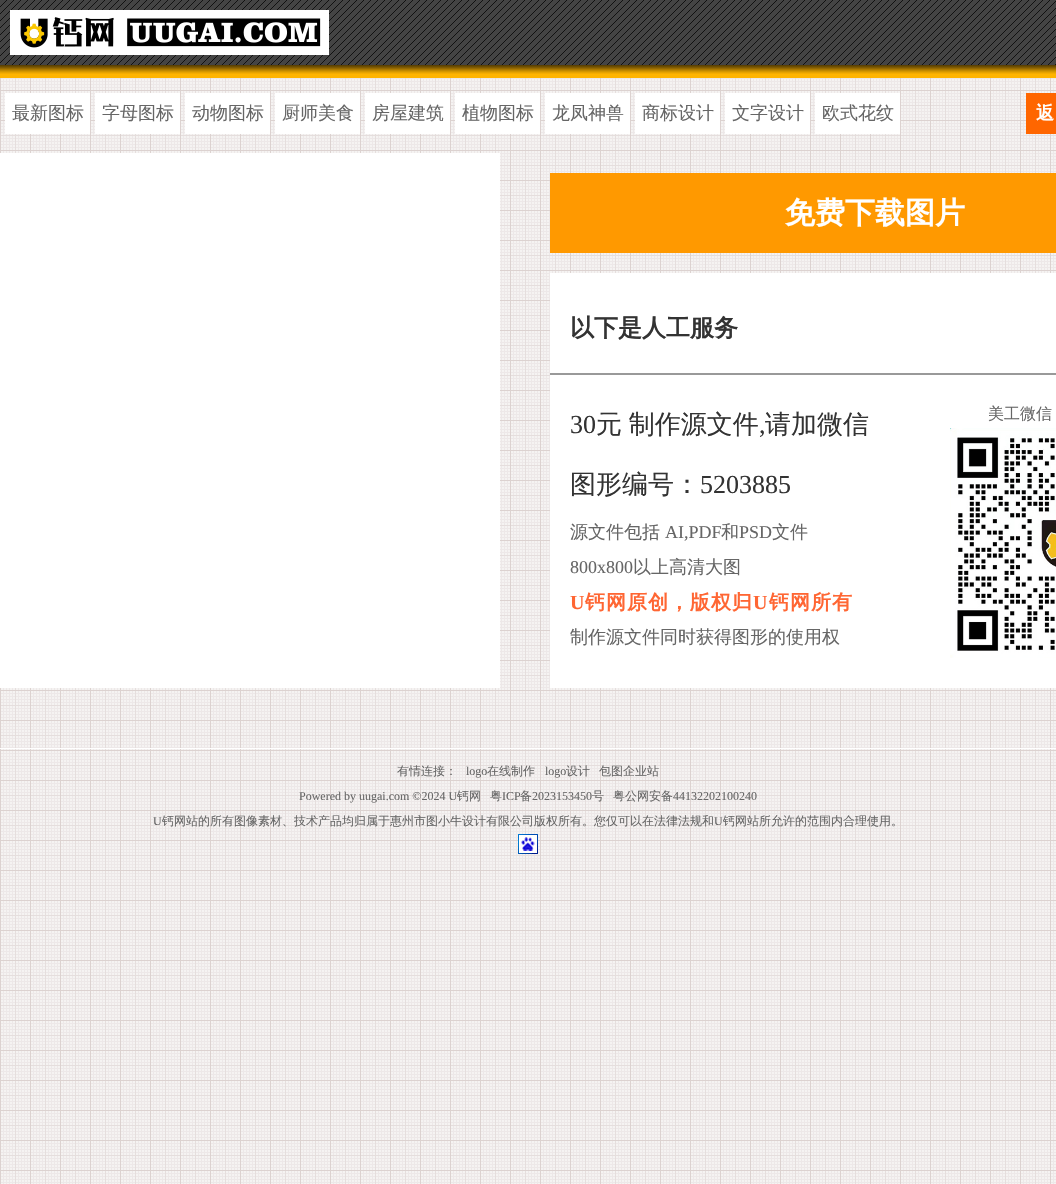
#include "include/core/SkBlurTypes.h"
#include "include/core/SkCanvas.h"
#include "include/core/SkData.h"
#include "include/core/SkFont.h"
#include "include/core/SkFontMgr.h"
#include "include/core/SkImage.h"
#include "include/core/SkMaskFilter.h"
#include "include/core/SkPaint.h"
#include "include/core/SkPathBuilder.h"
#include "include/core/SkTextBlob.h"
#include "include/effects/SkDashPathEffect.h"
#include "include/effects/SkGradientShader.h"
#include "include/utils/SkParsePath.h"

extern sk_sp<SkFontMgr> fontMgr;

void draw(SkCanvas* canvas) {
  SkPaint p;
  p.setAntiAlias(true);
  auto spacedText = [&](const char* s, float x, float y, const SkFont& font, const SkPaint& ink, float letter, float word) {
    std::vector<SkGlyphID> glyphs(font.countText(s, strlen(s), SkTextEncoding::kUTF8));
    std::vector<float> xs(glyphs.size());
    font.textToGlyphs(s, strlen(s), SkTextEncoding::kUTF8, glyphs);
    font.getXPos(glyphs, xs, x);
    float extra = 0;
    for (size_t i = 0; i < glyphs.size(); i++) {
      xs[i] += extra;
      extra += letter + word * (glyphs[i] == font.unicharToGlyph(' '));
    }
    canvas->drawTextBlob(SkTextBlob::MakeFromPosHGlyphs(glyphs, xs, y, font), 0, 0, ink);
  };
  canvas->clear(SK_ColorWHITE);
  canvas->drawImageRect(SkImages::DeferredFromEncodedData(SkData::MakeFromFileName("images/1.png")), SkRect::MakeLTRB(0, 78, 1056, 1184), SkSamplingOptions());
  canvas->drawImageRect(SkImages::DeferredFromEncodedData(SkData::MakeFromFileName("images/2.png")), SkRect::MakeLTRB(0, 0, 1056, 65), SkSamplingOptions());
  canvas->drawImageRect(SkImages::DeferredFromEncodedData(SkData::MakeFromFileName("images/3.png")), SkRect::MakeLTRB(10, 10, 329, 55), SkSamplingOptions());
  canvas->drawImageRect(SkImages::DeferredFromEncodedData(SkData::MakeFromFileName("images/4.png")), SkRect::MakeLTRB(0, 65, 1056, 78), SkSamplingOptions());
  p.setColor(SK_ColorWHITE);
  canvas->drawRect(SkRect::MakeLTRB(5, 93, 90, 134), p);
  canvas->drawRect(SkRect::MakeLTRB(95, 93, 180, 134), p);
  canvas->drawRect(SkRect::MakeLTRB(185, 93, 270, 134), p);
  canvas->drawRect(SkRect::MakeLTRB(275, 93, 360, 134), p);
  canvas->drawRect(SkRect::MakeLTRB(365, 93, 450, 134), p);
  canvas->drawRect(SkRect::MakeLTRB(455, 93, 540, 134), p);
  canvas->drawRect(SkRect::MakeLTRB(545, 93, 630, 134), p);
  canvas->drawRect(SkRect::MakeLTRB(635, 93, 720, 134), p);
  canvas->drawRect(SkRect::MakeLTRB(725, 93, 810, 134), p);
  canvas->drawRect(SkRect::MakeLTRB(815, 93, 900, 134), p);
  p.setColor(SkColorSetRGB(255, 102, 0));
  canvas->drawRect(SkRect::MakeLTRB(1026, 93, 1056, 134), p);
  p.setColor(SK_ColorWHITE);
  canvas->drawRect(SkRect::MakeLTRB(0, 153, 500, 688), p);
  p.setColor(SkColorSetRGB(255, 153, 0));
  canvas->drawRect(SkRect::MakeLTRB(550, 173, 1056, 253), p);
  p.setColor(SK_ColorWHITE);
  canvas->drawRect(SkRect::MakeLTRB(550, 273, 1056, 688), p);
  p.setColor(SkColorSetRGB(153, 153, 153));
  canvas->drawRect(SkRect::MakeLTRB(550, 373, 1056, 375), p);
  canvas->drawImageRect(SkImages::DeferredFromEncodedData(SkData::MakeFromFileName("images/5.png")), SkRect::MakeLTRB(950, 428, 1056, 658), SkSamplingOptions());
  p.setColor(SK_ColorWHITE);
  canvas->drawRect(SkRect::MakeLTRB(0, 748, 1056, 749), p);
  canvas->drawImageRect(SkImages::DeferredFromEncodedData(SkData::MakeFromFileName("images/6.png")), SkRect::MakeLTRB(518, 834, 538, 854), SkSamplingOptions());
  SkFont font1(fontMgr->matchFamilyStyle("WenQuanYi Zen Hei", SkFontStyle(500, SkFontStyle::kNormal_Width, SkFontStyle::kUpright_Slant)), 18);
  font1.setSubpixel(true);
  p.setColor(SkColorSetRGB(102, 102, 102));
  canvas->drawString("最新图标", 12, 119, font1, p);
  canvas->drawString("字母图标", 102, 119, font1, p);
  canvas->drawString("动物图标", 192, 119, font1, p);
  canvas->drawString("厨师美食", 282, 119, font1, p);
  canvas->drawString("房屋建筑", 372, 119, font1, p);
  canvas->drawString("植物图标", 462, 119, font1, p);
  canvas->drawString("龙凤神兽", 552, 119, font1, p);
  canvas->drawString("商标设计", 642, 119, font1, p);
  canvas->drawString("文字设计", 732, 119, font1, p);
  canvas->drawString("欧式花纹", 822, 119, font1, p);
  SkFont font2(fontMgr->matchFamilyStyle("WenQuanYi Zen Hei", SkFontStyle::Bold()), 18);
  font2.setSubpixel(true);
  p.setColor(SK_ColorWHITE);
  canvas->drawString("返", 1036, 119, font2, p);
  SkFont font3(fontMgr->matchFamilyStyle("WenQuanYi Zen Hei", SkFontStyle::Bold()), 30);
  font3.setSubpixel(true);
  canvas->drawString("免费下载图片", 785, 223, font3, p);
  SkFont font4(fontMgr->matchFamilyStyle("WenQuanYi Zen Hei", SkFontStyle::Bold()), 24);
  font4.setSubpixel(true);
  p.setColor(SkColorSetRGB(51, 51, 51));
  canvas->drawString("以下是人工服务", 570, 336, font4, p);
  SkFont font5(fontMgr->matchFamilyStyle("Liberation Serif", SkFontStyle::Normal()), 26);
  font5.setSubpixel(true);
  canvas->drawString("30", 570, 433, font5, p);
  SkFont font6(fontMgr->matchFamilyStyle("WenQuanYi Zen Hei", SkFontStyle(500, SkFontStyle::kNormal_Width, SkFontStyle::kUpright_Slant)), 26);
  font6.setSubpixel(true);
  spacedText("元 制作源文件", 596, 433, font6, p, 0, -1);
  canvas->drawString(",", 759, 433, font5, p);
  canvas->drawString("请加微信", 765, 433, font6, p);
  canvas->drawString("图形编号：", 570, 493, font6, p);
  canvas->drawString("5203885", 700, 493, font5, p);
  p.setColor(SkColorSetRGB(102, 102, 102));
  canvas->drawString("源文件包括", 570, 538, font1, p);
  SkFont font7(fontMgr->matchFamilyStyle("Liberation Serif", SkFontStyle::Normal()), 18);
  font7.setSubpixel(true);
  canvas->drawString("AI,PDF", 665, 538, font7, p);
  canvas->drawString("和", 721, 538, font1, p);
  canvas->drawString("PSD", 739, 538, font7, p);
  canvas->drawString("文件", 772, 538, font1, p);
  canvas->drawString("800x800", 570, 573, font7, p);
  canvas->drawString("以上高清大图", 633, 573, font1, p);
  SkFont font8(fontMgr->matchFamilyStyle("Liberation Serif", SkFontStyle::Bold()), 20);
  font8.setSubpixel(true);
  p.setColor(SkColorSetRGB(255, 102, 51));
  spacedText("U", 570, 609, font8, p, 1, 0);
  SkFont font9(fontMgr->matchFamilyStyle("WenQuanYi Zen Hei", SkFontStyle::Bold()), 20);
  font9.setSubpixel(true);
  spacedText("钙网原创，版权归", 585, 609, font9, p, 1, 0);
  spacedText("U", 753, 609, font8, p, 1, 0);
  spacedText("钙网所有", 769, 609, font9, p, 1, 0);
  p.setColor(SkColorSetRGB(102, 102, 102));
  canvas->drawString("制作源文件同时获得图形的使用权", 570, 643, font1, p);
  SkFont font10(fontMgr->matchFamilyStyle("WenQuanYi Zen Hei", SkFontStyle(500, SkFontStyle::kNormal_Width, SkFontStyle::kUpright_Slant)), 16);
  font10.setSubpixel(true);
  canvas->drawString("美工微信", 988, 419, font10, p);
  SkFont font11(fontMgr->matchFamilyStyle("WenQuanYi Zen Hei", SkFontStyle(500, SkFontStyle::kNormal_Width, SkFontStyle::kUpright_Slant)), 12);
  font11.setSubpixel(true);
  canvas->drawString("有情连接：", 397, 775, font11, p);
  SkFont font12(fontMgr->matchFamilyStyle("Liberation Serif", SkFontStyle::Normal()), 12);
  font12.setSubpixel(true);
  canvas->drawString("logo", 466, 775, font12, p);
  canvas->drawString("在线制作", 487, 775, font11, p);
  canvas->drawString("logo", 545, 775, font12, p);
  canvas->drawString("设计", 566, 775, font11, p);
  canvas->drawString("包图企业站", 599, 775, font11, p);
  canvas->drawString("Powered by uugai.com ©2024 U", 299, 800, font12, p);
  canvas->drawString("钙网", 457, 800, font11, p);
  canvas->drawString("粤", 490, 800, font11, p);
  canvas->drawString("ICP", 502, 800, font12, p);
  canvas->drawString("备", 520, 800, font11, p);
  canvas->drawString("2023153450", 532, 800, font12, p);
  canvas->drawString("号", 592, 800, font11, p);
  canvas->drawString("粤公网安备", 613, 800, font11, p);
  canvas->drawString("44132202100240", 673, 800, font12, p);
  canvas->drawString("U", 153, 825, font12, p);
  canvas->drawString("钙网站的所有图像素材、技术产品均归属于惠州市图小牛设计有限公司版权所有。您仅可以在法律法规和", 162, 825, font11, p);
  canvas->drawString("U", 714, 825, font12, p);
  canvas->drawString("钙网站所允许的范围内合理使用。", 723, 825, font11, p);
}
